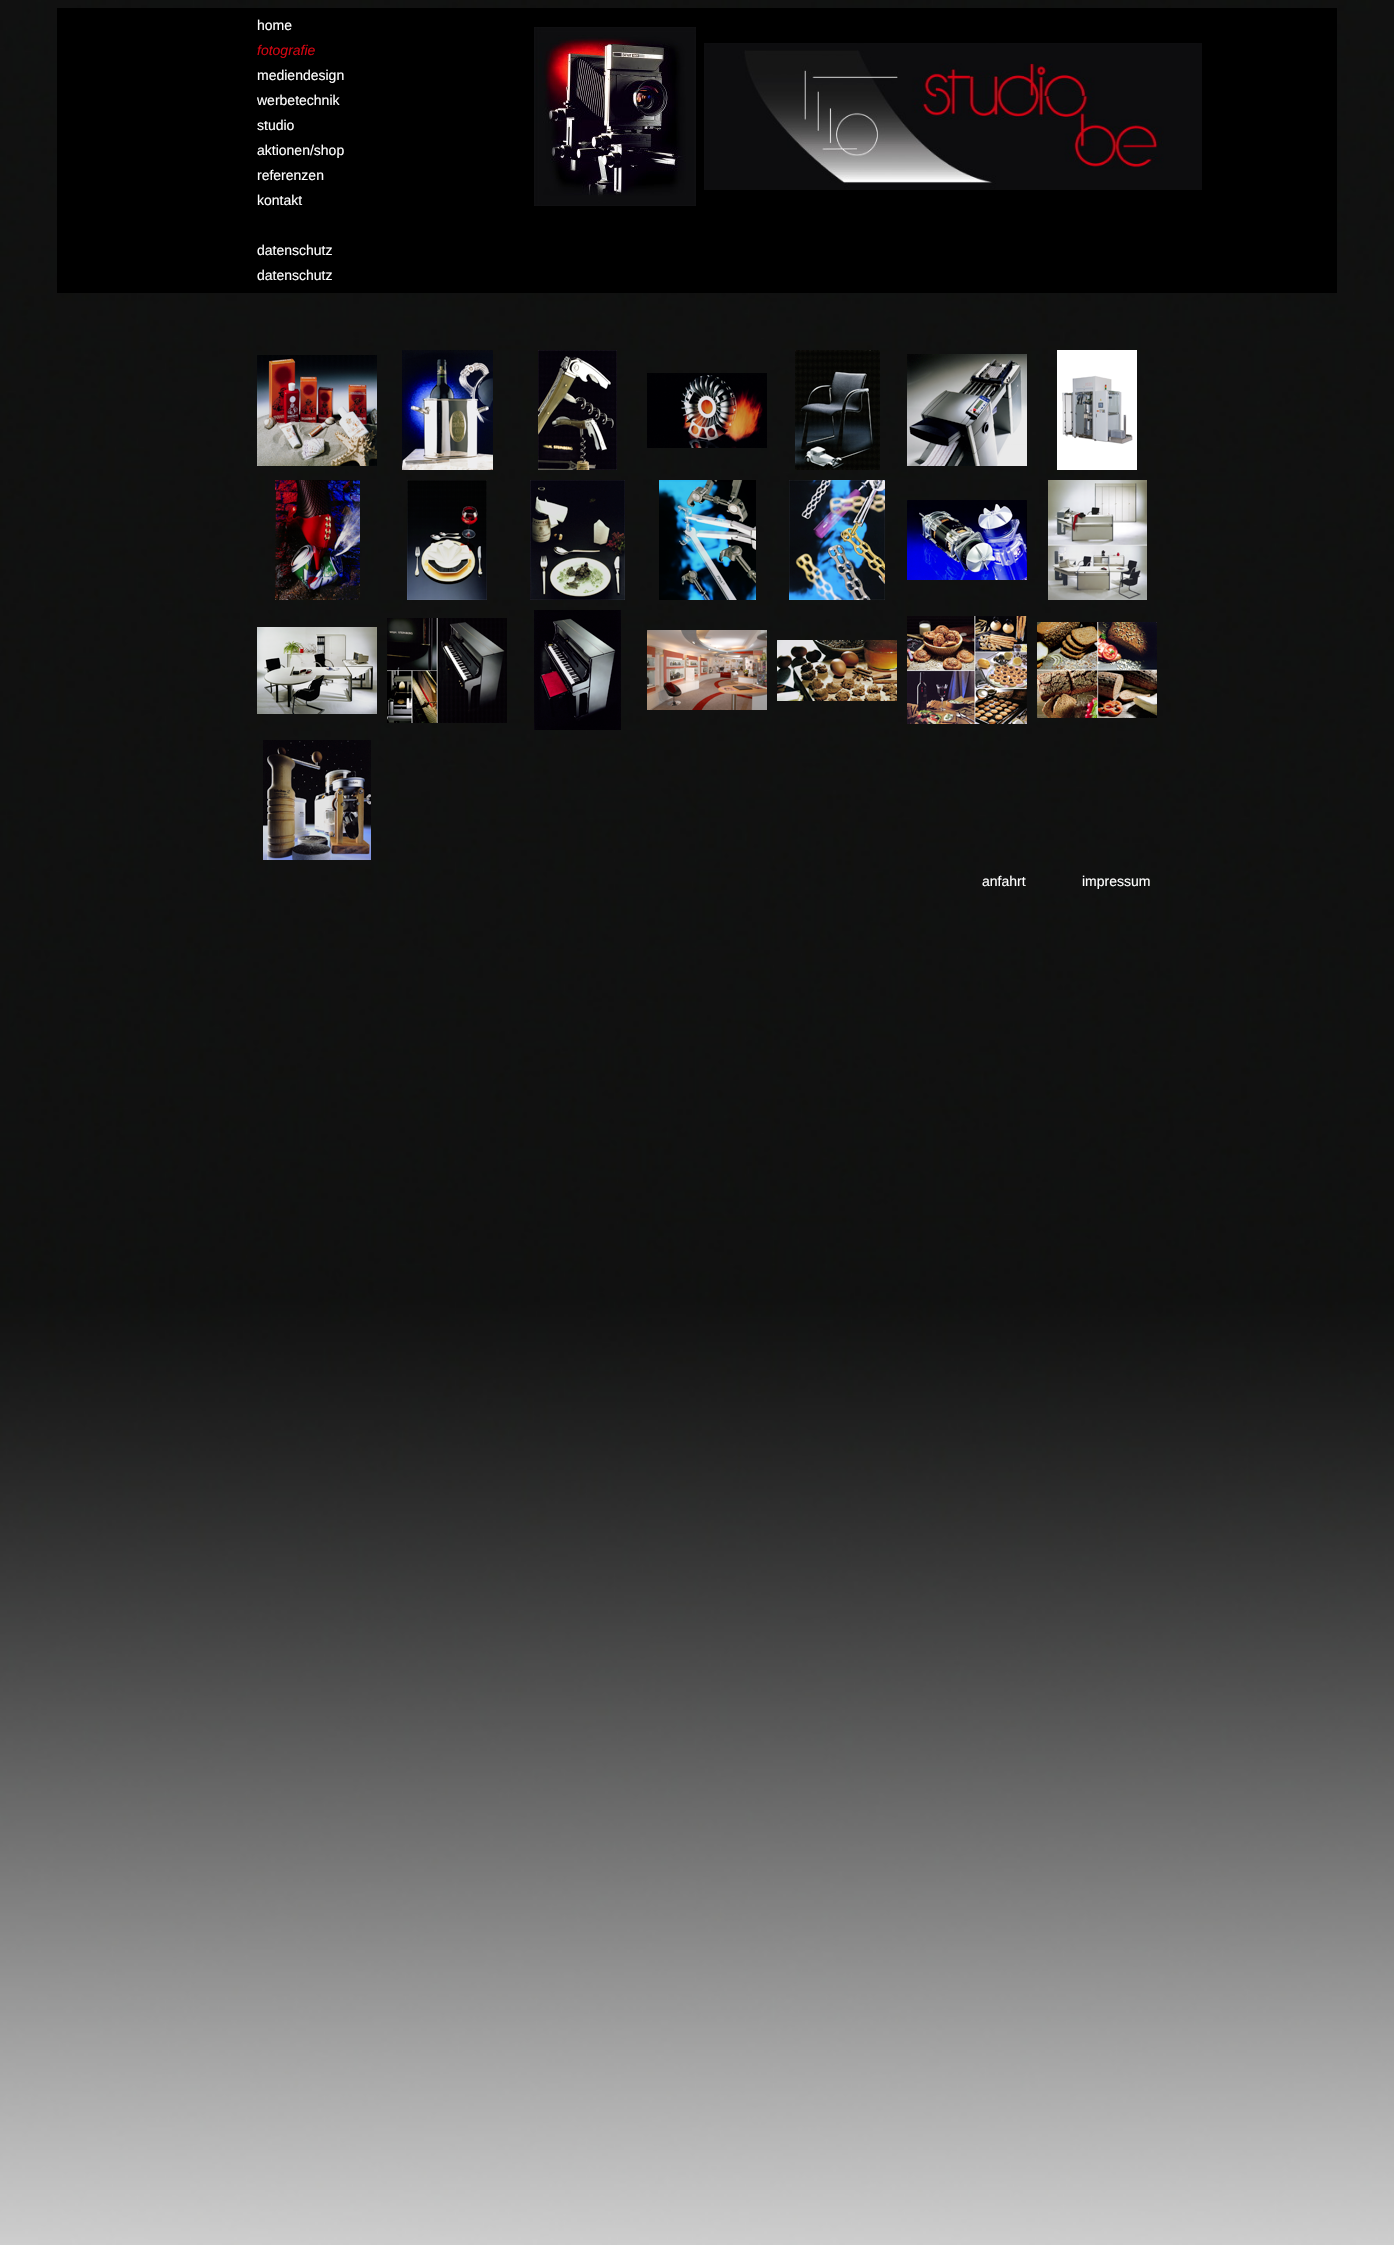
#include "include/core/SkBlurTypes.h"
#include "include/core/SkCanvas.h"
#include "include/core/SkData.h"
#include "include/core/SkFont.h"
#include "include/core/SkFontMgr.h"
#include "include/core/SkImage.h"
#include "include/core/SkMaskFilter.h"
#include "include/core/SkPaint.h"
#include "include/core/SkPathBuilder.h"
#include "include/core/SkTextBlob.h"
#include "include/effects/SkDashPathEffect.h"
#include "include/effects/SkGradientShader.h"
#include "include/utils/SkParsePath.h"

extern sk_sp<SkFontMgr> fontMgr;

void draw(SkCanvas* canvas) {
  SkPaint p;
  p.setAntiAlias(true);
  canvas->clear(SK_ColorWHITE);
  canvas->drawImageRect(SkImages::DeferredFromEncodedData(SkData::MakeFromFileName("images/1.png")), SkRect::MakeLTRB(0, 0, 1394, 2245), SkSamplingOptions());
  p.setColor(SK_ColorBLACK);
  canvas->drawRect(SkRect::MakeLTRB(57, 8, 1337, 293), p);
  canvas->drawImageRect(SkImages::DeferredFromEncodedData(SkData::MakeFromFileName("images/2.png")), SkRect::MakeLTRB(534, 27, 696, 206), SkSamplingOptions());
  canvas->drawImageRect(SkImages::DeferredFromEncodedData(SkData::MakeFromFileName("images/3.png")), SkRect::MakeLTRB(704, 43, 1202, 190), SkSamplingOptions());
  canvas->drawImageRect(SkImages::DeferredFromEncodedData(SkData::MakeFromFileName("images/4.png")), SkRect::MakeLTRB(257, 355, 377, 466), SkSamplingOptions());
  canvas->drawImageRect(SkImages::DeferredFromEncodedData(SkData::MakeFromFileName("images/5.png")), SkRect::MakeLTRB(402, 350, 493, 470), SkSamplingOptions());
  canvas->drawImageRect(SkImages::DeferredFromEncodedData(SkData::MakeFromFileName("images/6.png")), SkRect::MakeLTRB(538, 350, 617, 470), SkSamplingOptions());
  canvas->drawImageRect(SkImages::DeferredFromEncodedData(SkData::MakeFromFileName("images/7.png")), SkRect::MakeLTRB(647, 373, 767, 448), SkSamplingOptions());
  canvas->drawImageRect(SkImages::DeferredFromEncodedData(SkData::MakeFromFileName("images/8.png")), SkRect::MakeLTRB(795, 350, 880, 470), SkSamplingOptions());
  canvas->drawImageRect(SkImages::DeferredFromEncodedData(SkData::MakeFromFileName("images/9.png")), SkRect::MakeLTRB(907, 354, 1027, 466), SkSamplingOptions());
  canvas->drawImageRect(SkImages::DeferredFromEncodedData(SkData::MakeFromFileName("images/10.png")), SkRect::MakeLTRB(1057, 350, 1137, 470), SkSamplingOptions());
  canvas->drawImageRect(SkImages::DeferredFromEncodedData(SkData::MakeFromFileName("images/11.png")), SkRect::MakeLTRB(275, 480, 360, 600), SkSamplingOptions());
  canvas->drawImageRect(SkImages::DeferredFromEncodedData(SkData::MakeFromFileName("images/12.png")), SkRect::MakeLTRB(407, 480, 487, 600), SkSamplingOptions());
  canvas->drawImageRect(SkImages::DeferredFromEncodedData(SkData::MakeFromFileName("images/13.png")), SkRect::MakeLTRB(530, 480, 625, 600), SkSamplingOptions());
  canvas->drawImageRect(SkImages::DeferredFromEncodedData(SkData::MakeFromFileName("images/14.png")), SkRect::MakeLTRB(659, 480, 756, 600), SkSamplingOptions());
  canvas->drawImageRect(SkImages::DeferredFromEncodedData(SkData::MakeFromFileName("images/15.png")), SkRect::MakeLTRB(789, 480, 885, 600), SkSamplingOptions());
  canvas->drawImageRect(SkImages::DeferredFromEncodedData(SkData::MakeFromFileName("images/16.png")), SkRect::MakeLTRB(907, 500, 1027, 580), SkSamplingOptions());
  canvas->drawImageRect(SkImages::DeferredFromEncodedData(SkData::MakeFromFileName("images/17.png")), SkRect::MakeLTRB(1048, 480, 1147, 600), SkSamplingOptions());
  canvas->drawImageRect(SkImages::DeferredFromEncodedData(SkData::MakeFromFileName("images/18.png")), SkRect::MakeLTRB(257, 627, 377, 714), SkSamplingOptions());
  canvas->drawImageRect(SkImages::DeferredFromEncodedData(SkData::MakeFromFileName("images/19.png")), SkRect::MakeLTRB(387, 618, 507, 723), SkSamplingOptions());
  canvas->drawImageRect(SkImages::DeferredFromEncodedData(SkData::MakeFromFileName("images/20.png")), SkRect::MakeLTRB(534, 610, 621, 730), SkSamplingOptions());
  canvas->drawImageRect(SkImages::DeferredFromEncodedData(SkData::MakeFromFileName("images/21.png")), SkRect::MakeLTRB(647, 630, 767, 710), SkSamplingOptions());
  canvas->drawImageRect(SkImages::DeferredFromEncodedData(SkData::MakeFromFileName("images/22.png")), SkRect::MakeLTRB(777, 640, 897, 701), SkSamplingOptions());
  canvas->drawImageRect(SkImages::DeferredFromEncodedData(SkData::MakeFromFileName("images/23.png")), SkRect::MakeLTRB(907, 616, 1027, 724), SkSamplingOptions());
  canvas->drawImageRect(SkImages::DeferredFromEncodedData(SkData::MakeFromFileName("images/24.png")), SkRect::MakeLTRB(1037, 622, 1157, 718), SkSamplingOptions());
  canvas->drawImageRect(SkImages::DeferredFromEncodedData(SkData::MakeFromFileName("images/25.png")), SkRect::MakeLTRB(263, 740, 371, 860), SkSamplingOptions());
  SkFont font1(fontMgr->matchFamilyStyle("Liberation Sans", SkFontStyle::Normal()), 14);
  font1.setSubpixel(true);
  p.setColor(SK_ColorWHITE);
  canvas->drawString("home", 257, 30, font1, p);
  SkFont font2(fontMgr->matchFamilyStyle("Liberation Sans", SkFontStyle::Italic()), 14);
  font2.setSubpixel(true);
  p.setColor(SkColorSetRGB(208, 5, 17));
  canvas->drawString("fotografie", 257, 55, font2, p);
  p.setColor(SK_ColorWHITE);
  canvas->drawString("mediendesign", 257, 80, font1, p);
  canvas->drawString("werbetechnik", 257, 105, font1, p);
  canvas->drawString("studio", 257, 130, font1, p);
  canvas->drawString("aktionen/shop", 257, 155, font1, p);
  canvas->drawString("referenzen", 257, 180, font1, p);
  canvas->drawString("kontakt", 257, 205, font1, p);
  canvas->drawString("datenschutz", 257, 255, font1, p);
  canvas->drawString("datenschutz", 257, 280, font1, p);
  canvas->drawString("anfahrt", 982, 886, font1, p);
  canvas->drawString("impressum", 1082, 886, font1, p);
}
